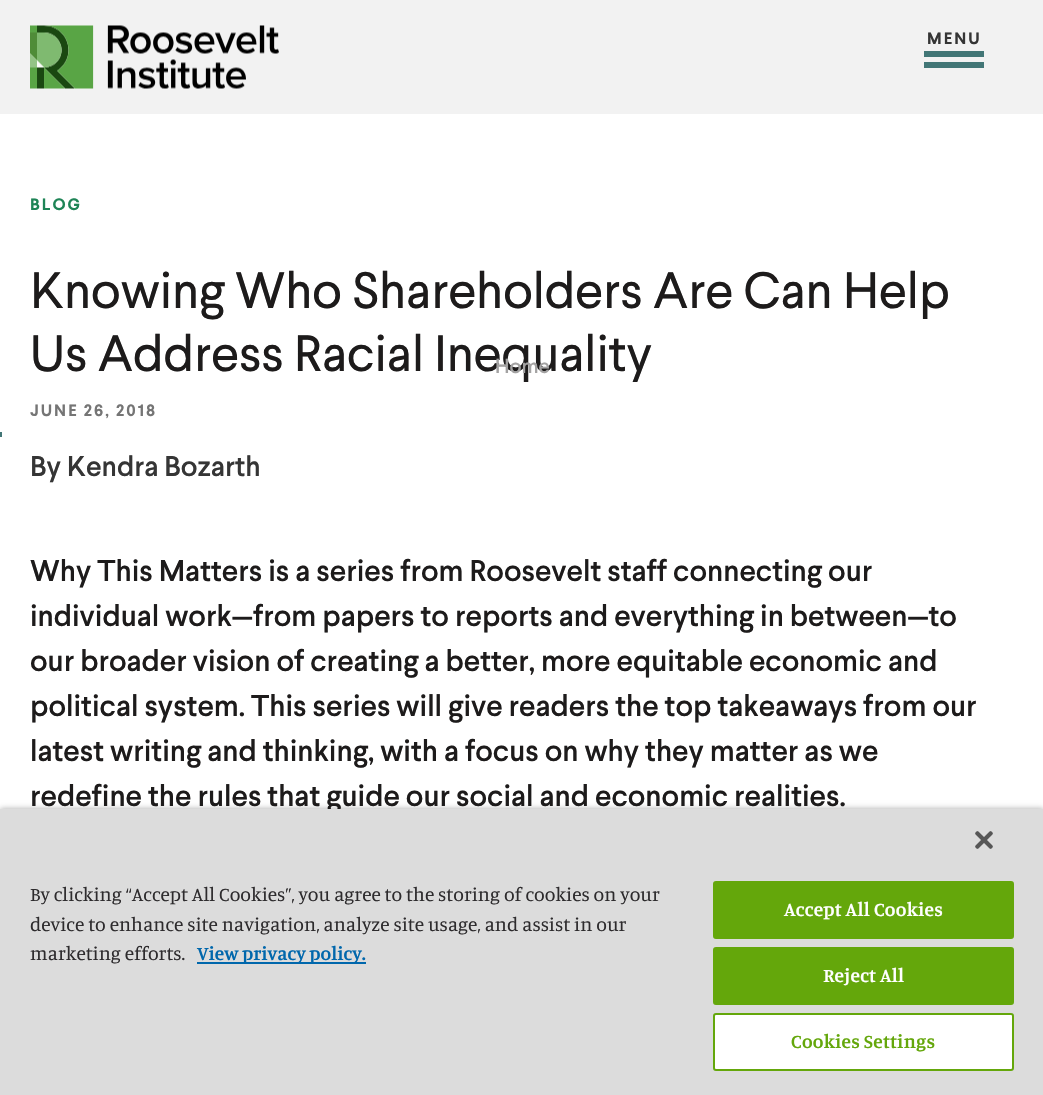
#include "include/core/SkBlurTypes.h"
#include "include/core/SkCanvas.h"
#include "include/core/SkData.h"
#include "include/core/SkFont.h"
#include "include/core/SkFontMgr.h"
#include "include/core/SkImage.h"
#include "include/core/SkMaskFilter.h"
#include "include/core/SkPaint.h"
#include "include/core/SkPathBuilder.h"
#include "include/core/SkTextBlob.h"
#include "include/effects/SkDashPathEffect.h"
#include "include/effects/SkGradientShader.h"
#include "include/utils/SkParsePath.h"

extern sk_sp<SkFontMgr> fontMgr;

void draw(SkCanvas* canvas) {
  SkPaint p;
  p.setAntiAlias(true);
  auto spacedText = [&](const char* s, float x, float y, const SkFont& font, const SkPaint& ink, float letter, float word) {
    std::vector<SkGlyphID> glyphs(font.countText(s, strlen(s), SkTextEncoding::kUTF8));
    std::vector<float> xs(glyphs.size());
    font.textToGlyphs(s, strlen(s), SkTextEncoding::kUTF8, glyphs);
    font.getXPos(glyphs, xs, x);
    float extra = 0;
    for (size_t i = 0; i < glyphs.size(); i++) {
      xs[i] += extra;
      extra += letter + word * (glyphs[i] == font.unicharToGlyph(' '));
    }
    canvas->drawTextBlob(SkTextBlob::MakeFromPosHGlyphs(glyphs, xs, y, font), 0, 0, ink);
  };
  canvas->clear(SK_ColorWHITE);
  p.setColor(SkColorSetRGB(242, 242, 242));
  canvas->drawRect(SkRect::MakeLTRB(0, 0, 1043, 114), p);
  canvas->drawImageRect(SkImages::DeferredFromEncodedData(SkData::MakeFromFileName("images/1.png")), SkRect::MakeLTRB(30, 25, 279, 89), SkSamplingOptions());
  p.setColor(SkColorSetRGB(66, 118, 118));
  canvas->drawRect(SkRect::MakeLTRB(924, 51, 984, 57), p);
  canvas->drawRect(SkRect::MakeLTRB(924, 62, 984, 68), p);
  canvas->drawRect(SkRect::MakeLTRB(0, 432, 2, 437), p);
  p.setColor(SkColorSetARGB(89, 0, 0, 0));
  p.setMaskFilter(SkMaskFilter::MakeBlur(kNormal_SkBlurStyle, 3));
  canvas->drawRect(SkRect::MakeLTRB(0, 809, 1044, 1095), p);
  p.setMaskFilter(nullptr);
  SkFont font1(fontMgr->matchFamilyStyle("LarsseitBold", SkFontStyle::Bold()), 16.5f);
  font1.setSubpixel(true);
  p.setColor(SkColorSetRGB(53, 53, 53));
  spacedText("MENU", 927, 44, font1, p, 2, 0);
  p.setColor(SkColorSetRGB(30, 132, 86));
  spacedText("BLOG", 30, 210, font1, p, 2, 0);
  SkFont font2(fontMgr->matchFamilyStyle("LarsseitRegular", SkFontStyle::Normal()), 51);
  font2.setSubpixel(true);
  p.setColor(SkColorSetRGB(29, 27, 27));
  canvas->drawString("Knowing Who Shareholders Are Can Help", 30, 308, font2, p);
  canvas->drawString("Us Address Racial Inequality", 30, 371, font2, p);
  p.setColor(SkColorSetRGB(117, 117, 117));
  spacedText("JUNE 26, 2018", 30, 416, font1, p, 2, 0);
  SkFont font3(fontMgr->matchFamilyStyle("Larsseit", SkFontStyle(500, SkFontStyle::kNormal_Width, SkFontStyle::kUpright_Slant)), 28.5f);
  font3.setSubpixel(true);
  p.setColor(SkColorSetRGB(53, 53, 53));
  canvas->drawString("By Kendra Bozarth", 30, 476, font3, p);
  SkFont font4(fontMgr->matchFamilyStyle("Larsseit", SkFontStyle(500, SkFontStyle::kNormal_Width, SkFontStyle::kUpright_Slant)), 30);
  font4.setSubpixel(true);
  p.setColor(SkColorSetRGB(29, 27, 27));
  canvas->drawString("Why This Matters is a series from Roosevelt staff connecting our", 30, 581, font4, p);
  canvas->drawString("individual work—from papers to reports and everything in between—to", 30, 626, font4, p);
  canvas->drawString("our broader vision of creating a better, more equitable economic and", 30, 671, font4, p);
  canvas->drawString("political system. This series will give readers the top takeaways from our", 30, 716, font4, p);
  canvas->drawString("latest writing and thinking, with a focus on why they matter as we", 30, 761, font4, p);
  canvas->drawString("redefine the rules that guide our social and economic realities.", 30, 806, font4, p);
  SkFont font5(fontMgr->matchFamilyStyle("Larsseit", SkFontStyle(500, SkFontStyle::kNormal_Width, SkFontStyle::kUpright_Slant)), 20.5f);
  font5.setSubpixel(true);
  p.setColor(SkColorSetRGB(163, 162, 162));
  canvas->drawString("Home", 495, 373, font5, p);
  p.setColor(SkColorSetRGB(220, 220, 220));
  canvas->drawRect(SkRect::MakeLTRB(0, 809, 1043, 1095), p);
  canvas->drawImageRect(SkImages::DeferredFromEncodedData(SkData::MakeFromFileName("images/2.png")), SkRect::MakeLTRB(975, 831, 993, 849), SkSamplingOptions());
  SkFont font6(fontMgr->matchFamilyStyle("Manuale", SkFontStyle::Normal()), 19.5f);
  font6.setSubpixel(true);
  p.setColor(SkColorSetRGB(45, 43, 45));
  canvas->drawString("By clicking “Accept All Cookies”, you agree to the storing of cookies on your", 30, 901, font6, p);
  canvas->drawString("device to enhance site navigation, analyze site usage, and assist in our", 30, 931, font6, p);
  canvas->drawString("marketing efforts.", 30, 960, font6, p);
  p.setColor(SkColorSetRGB(0, 103, 172));
  canvas->drawRect(SkRect::MakeLTRB(197, 962, 366, 964), p);
  SkFont font7(fontMgr->matchFamilyStyle("Manuale", SkFontStyle(600, SkFontStyle::kNormal_Width, SkFontStyle::kUpright_Slant)), 19.5f);
  font7.setSubpixel(true);
  canvas->drawString("View privacy policy.", 197, 960, font7, p);
  p.setColor(SkColorSetRGB(100, 167, 11));
  canvas->drawRoundRect(SkRect::MakeLTRB(714, 882, 1013, 938), 2, 2, p);
  p.setStyle(SkPaint::kStroke_Style);
  p.setStrokeWidth(2);
  canvas->drawRoundRect(SkRect::MakeLTRB(714, 882, 1013, 938), 2, 2, p);
  p.setStyle(SkPaint::kFill_Style);
  p.setColor(SK_ColorWHITE);
  spacedText("Accept All Cookies", 784, 916, font7, p, 0.25f, 0);
  p.setColor(SkColorSetRGB(100, 167, 11));
  canvas->drawRoundRect(SkRect::MakeLTRB(714, 948, 1013, 1004), 2, 2, p);
  p.setStyle(SkPaint::kStroke_Style);
  canvas->drawRoundRect(SkRect::MakeLTRB(714, 948, 1013, 1004), 2, 2, p);
  p.setStyle(SkPaint::kFill_Style);
  p.setColor(SK_ColorWHITE);
  spacedText("Reject All", 823, 982, font7, p, 0.25f, 0);
  canvas->drawRoundRect(SkRect::MakeLTRB(714, 1014, 1013, 1070), 2, 2, p);
  p.setStyle(SkPaint::kStroke_Style);
  p.setColor(SkColorSetRGB(100, 167, 11));
  canvas->drawRoundRect(SkRect::MakeLTRB(714, 1014, 1013, 1070), 2, 2, p);
  p.setStyle(SkPaint::kFill_Style);
  spacedText("Cookies Settings", 791, 1048, font7, p, 0.25f, 0);
}
